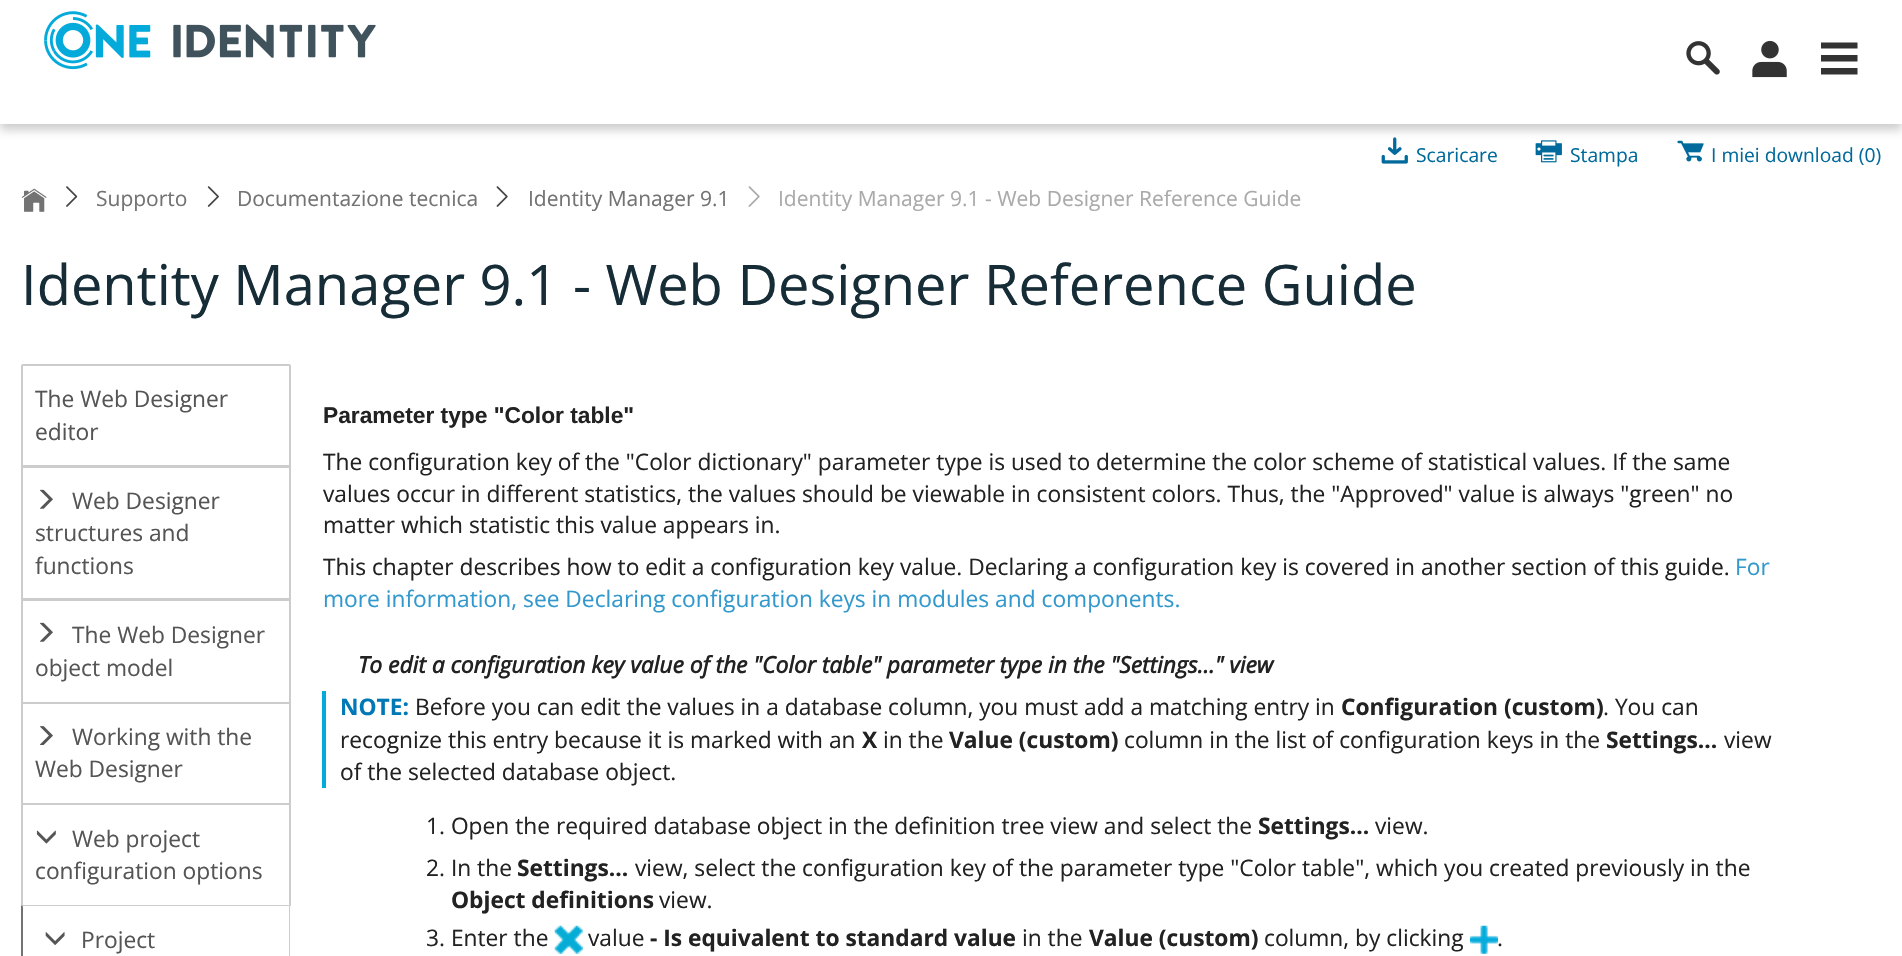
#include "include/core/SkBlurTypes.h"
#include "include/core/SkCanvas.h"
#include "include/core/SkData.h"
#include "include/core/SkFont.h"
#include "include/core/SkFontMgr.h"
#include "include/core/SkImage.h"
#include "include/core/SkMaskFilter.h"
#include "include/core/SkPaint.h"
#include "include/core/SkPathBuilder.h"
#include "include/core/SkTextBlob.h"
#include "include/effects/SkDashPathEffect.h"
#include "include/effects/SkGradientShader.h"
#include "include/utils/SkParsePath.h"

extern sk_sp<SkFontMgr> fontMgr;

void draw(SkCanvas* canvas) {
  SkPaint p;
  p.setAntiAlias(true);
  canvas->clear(SK_ColorWHITE);
  canvas->drawImageRect(SkImages::DeferredFromEncodedData(SkData::MakeFromFileName("images/4.png")), SkRect::MakeLTRB(1381, 137, 1408, 164), SkSamplingOptions());
  canvas->drawImageRect(SkImages::DeferredFromEncodedData(SkData::MakeFromFileName("images/5.png")), SkRect::MakeLTRB(1535, 140, 1562, 163), SkSamplingOptions());
  canvas->drawImageRect(SkImages::DeferredFromEncodedData(SkData::MakeFromFileName("images/6.png")), SkRect::MakeLTRB(1677, 140, 1704, 162), SkSamplingOptions());
  canvas->save();
  canvas->clipRect(SkRect::MakeLTRB(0, 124, 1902, 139));
  p.setColor(SkColorSetRGB(205, 205, 205));
  p.setMaskFilter(SkMaskFilter::MakeBlur(kNormal_SkBlurStyle, 4.5f));
  canvas->drawRect(SkRect::MakeLTRB(0, 4, 1902, 130), p);
  p.setMaskFilter(nullptr);
  canvas->restore();
  canvas->drawImageRect(SkImages::DeferredFromEncodedData(SkData::MakeFromFileName("images/1.png")), SkRect::MakeLTRB(44, 11, 376, 70), SkSamplingOptions());
  canvas->drawImageRect(SkImages::DeferredFromEncodedData(SkData::MakeFromFileName("images/2.png")), SkRect::MakeLTRB(1686, 41, 1720, 75), SkSamplingOptions());
  canvas->drawImageRect(SkImages::DeferredFromEncodedData(SkData::MakeFromFileName("images/3.png")), SkRect::MakeLTRB(1752, 40, 1787, 78), SkSamplingOptions());
  p.setColor(SkColorSetRGB(51, 51, 51));
  canvas->drawPath(SkPathBuilder().moveTo(1821, 42.5f).lineTo(1857.5f, 42.5f).lineTo(1857.5f, 48.5f).lineTo(1821, 48.5f).close().moveTo(1821, 55).lineTo(1857.5f, 55).lineTo(1857.5f, 61.5f).lineTo(1821, 61.5f).close().moveTo(1821, 68).lineTo(1857.5f, 68).lineTo(1857.5f, 74.5f).lineTo(1821, 74.5f).close().detach(), p);
  canvas->drawImageRect(SkImages::DeferredFromEncodedData(SkData::MakeFromFileName("images/7.png")), SkRect::MakeLTRB(21, 188, 47, 212), SkSamplingOptions());
  canvas->drawImageRect(SkImages::DeferredFromEncodedData(SkData::MakeFromFileName("images/8.png")), SkRect::MakeLTRB(66, 186, 78, 207), SkSamplingOptions());
  canvas->drawImageRect(SkImages::DeferredFromEncodedData(SkData::MakeFromFileName("images/9.png")), SkRect::MakeLTRB(207, 186, 219, 207), SkSamplingOptions());
  canvas->drawImageRect(SkImages::DeferredFromEncodedData(SkData::MakeFromFileName("images/10.png")), SkRect::MakeLTRB(496, 186, 508, 207), SkSamplingOptions());
  canvas->drawImageRect(SkImages::DeferredFromEncodedData(SkData::MakeFromFileName("images/11.png")), SkRect::MakeLTRB(748, 186, 760, 207), SkSamplingOptions());
  p.setStyle(SkPaint::kStroke_Style);
  p.setStrokeWidth(2);
  p.setColor(SkColorSetRGB(204, 204, 204));
  canvas->drawPath(SkPathBuilder().moveTo(23, 365).lineTo(289, 365).cubicTo(289.5f, 365, 290, 365.5f, 290, 366).lineTo(290, 466).lineTo(22, 466).lineTo(22, 366).cubicTo(22, 365.5f, 22.5f, 365, 23, 365).close().detach(), p);
  canvas->drawRect(SkRect::MakeLTRB(22, 467, 290, 599), p);
  canvas->drawImageRect(SkImages::DeferredFromEncodedData(SkData::MakeFromFileName("images/12.png")), SkRect::MakeLTRB(40, 489, 53, 509), SkSamplingOptions());
  canvas->drawRect(SkRect::MakeLTRB(22, 600, 290, 703), p);
  canvas->drawImageRect(SkImages::DeferredFromEncodedData(SkData::MakeFromFileName("images/12.png")), SkRect::MakeLTRB(40, 622, 53, 642), SkSamplingOptions());
  canvas->drawRect(SkRect::MakeLTRB(22, 703, 290, 804), p);
  canvas->drawImageRect(SkImages::DeferredFromEncodedData(SkData::MakeFromFileName("images/13.png")), SkRect::MakeLTRB(40, 726, 53, 745), SkSamplingOptions());
  canvas->drawRect(SkRect::MakeLTRB(22, 804, 290, 906), p);
  canvas->drawImageRect(SkImages::DeferredFromEncodedData(SkData::MakeFromFileName("images/14.png")), SkRect::MakeLTRB(36, 830, 56, 844), SkSamplingOptions());
  p.setStyle(SkPaint::kFill_Style);
  p.setColor(SK_ColorWHITE);
  canvas->drawPath(SkPathBuilder().moveTo(23, 905).lineTo(289, 905).cubicTo(290, 905, 291, 906, 291, 907).lineTo(291, 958).lineTo(21, 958).lineTo(21, 907).cubicTo(21, 906, 22, 905, 23, 905).close().detach(), p);
  p.setColor(SkColorSetRGB(204, 204, 204));
  canvas->drawPath(SkPathBuilder().moveTo(23, 905).lineTo(22, 905).lineTo(23, 907).lineTo(23, 906).lineTo(289, 906).lineTo(290, 905).lineTo(289, 905).close().detach(), p);
  canvas->drawPath(SkPathBuilder().moveTo(290, 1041).lineTo(290, 905).lineTo(289, 906).lineTo(289, 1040).close().detach(), p);
  p.setColor(SkColorSetRGB(115, 115, 115));
  canvas->drawPath(SkPathBuilder().moveTo(21, 906).lineTo(21, 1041).lineTo(23, 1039).lineTo(23, 907).lineTo(22, 905).close().detach(), p);
  canvas->drawImageRect(SkImages::DeferredFromEncodedData(SkData::MakeFromFileName("images/15.png")), SkRect::MakeLTRB(45, 932, 65, 945), SkSamplingOptions());
  p.setColor(SkColorSetRGB(4, 170, 218));
  canvas->drawRect(SkRect::MakeLTRB(322, 691, 326, 788), p);
  canvas->drawImageRect(SkImages::DeferredFromEncodedData(SkData::MakeFromFileName("images/16.png")), SkRect::MakeLTRB(554, 925, 583, 954), SkSamplingOptions());
  canvas->drawImageRect(SkImages::DeferredFromEncodedData(SkData::MakeFromFileName("images/17.png")), SkRect::MakeLTRB(1470, 925, 1498, 954), SkSamplingOptions());
  SkFont font1(fontMgr->matchFamilyStyle("Open Sans", SkFontStyle::Normal()), 19.25f);
  font1.setSubpixel(true);
  p.setColor(SkColorSetRGB(1, 106, 156));
  canvas->drawString("Scaricare", 1416, 162, font1, p);
  canvas->drawString("Stampa", 1570, 162, font1, p);
  canvas->drawString("I miei download (0)", 1711, 162, font1, p);
  SkFont font2(fontMgr->matchFamilyStyle("Open Sans", SkFontStyle::Normal()), 21);
  font2.setSubpixel(true);
  p.setColor(SkColorSetRGB(115, 115, 115));
  canvas->drawString("Supporto", 96, 206, font2, p);
  canvas->drawString("Documentazione tecnica", 237, 206, font2, p);
  canvas->drawString("Identity Manager 9.1", 528, 206, font2, p);
  p.setColor(SkColorSetRGB(170, 170, 170));
  canvas->drawString("Identity Manager 9.1 - Web Designer Reference Guide", 778, 206, font2, p);
  SkFont font3(fontMgr->matchFamilyStyle("Open Sans", SkFontStyle::Normal()), 56);
  font3.setSubpixel(true);
  p.setColor(SkColorSetRGB(22, 44, 54));
  canvas->drawString("Identity Manager 9.1 - Web Designer Reference Guide", 21, 305, font3, p);
  SkFont font4(fontMgr->matchFamilyStyle("Open Sans", SkFontStyle::Normal()), 22.75f);
  font4.setSubpixel(true);
  p.setColor(SkColorSetRGB(85, 85, 85));
  canvas->drawString("The Web Designer", 35, 407, font4, p);
  canvas->drawString("editor", 35, 440, font4, p);
  canvas->drawString("Web Designer", 72, 509, font4, p);
  canvas->drawString("structures and", 35, 541, font4, p);
  canvas->drawString("functions", 35, 574, font4, p);
  canvas->drawString("The Web Designer", 72, 643, font4, p);
  canvas->drawString("object model", 35, 676, font4, p);
  canvas->drawString("Working with the", 72, 745, font4, p);
  canvas->drawString("Web Designer", 35, 777, font4, p);
  canvas->drawString("Web project", 72, 847, font4, p);
  canvas->drawString("configuration options", 35, 879, font4, p);
  canvas->drawString("Project", 81, 948, font4, p);
  SkFont font5(fontMgr->matchFamilyStyle("Liberation Sans", SkFontStyle::Bold()), 22.75f);
  font5.setSubpixel(true);
  p.setColor(SkColorSetRGB(34, 34, 34));
  canvas->drawString("Parameter type \"Color table\"", 323, 423, font5, p);
  canvas->drawString("The configuration key of the \"Color dictionary\" parameter type is used to determine the color scheme of statistical values. If the same", 323, 470, font4, p);
  canvas->drawString("values occur in different statistics, the values should be viewable in consistent colors. Thus, the \"Approved\" value is always \"green\" no", 323, 502, font4, p);
  canvas->drawString("matter which statistic this value appears in.", 323, 533, font4, p);
  canvas->drawString("This chapter describes how to edit a configuration key value. Declaring a configuration key is covered in another section of this guide.", 323, 575, font4, p);
  p.setColor(SkColorSetRGB(51, 153, 204));
  canvas->drawString("For", 1735, 575, font4, p);
  canvas->drawString("more information, see Declaring configuration keys in modules and components.", 323, 607, font4, p);
  SkFont font6(fontMgr->matchFamilyStyle("Open Sans", SkFontStyle::BoldItalic()), 22.75f);
  font6.setSubpixel(true);
  p.setColor(SkColorSetRGB(34, 34, 34));
  canvas->drawString("To edit a configuration key value of the \"Color table\" parameter type in the \"Settings...\" view", 358, 673, font6, p);
  SkFont font7(fontMgr->matchFamilyStyle("Open Sans", SkFontStyle::Bold()), 22.75f);
  font7.setSubpixel(true);
  p.setColor(SkColorSetRGB(0, 120, 182));
  canvas->drawString("NOTE:", 340, 715, font7, p);
  p.setColor(SkColorSetRGB(34, 34, 34));
  canvas->drawString("Before you can edit the values in a database column, you must add a matching entry in", 415, 715, font4, p);
  canvas->drawString("Configuration (custom)", 1341, 715, font7, p);
  canvas->drawString(". You can", 1603, 715, font4, p);
  canvas->drawString("recognize this entry because it is marked with an", 340, 748, font4, p);
  canvas->drawString("X", 862, 748, font7, p);
  canvas->drawString("in the", 883, 748, font4, p);
  canvas->drawString("Value (custom)", 949, 748, font7, p);
  canvas->drawString("column in the list of configuration keys in the", 1124, 748, font4, p);
  canvas->drawString("Settings...", 1606, 748, font7, p);
  canvas->drawString("view", 1724, 748, font4, p);
  canvas->drawString("of the selected database object.", 340, 780, font4, p);
  canvas->drawString("1. Open the required database object in the definition tree view and select the", 426, 834, font4, p);
  canvas->drawString("Settings...", 1258, 834, font7, p);
  canvas->drawString("view.", 1375, 834, font4, p);
  canvas->drawString("2. In the", 426, 876, font4, p);
  canvas->drawString("Settings...", 517, 876, font7, p);
  canvas->drawString("view, select the configuration key of the parameter type \"Color table\", which you created previously in the", 635, 876, font4, p);
  canvas->drawString("Object definitions", 451, 908, font7, p);
  canvas->drawString("view.", 659, 908, font4, p);
  canvas->drawString("3. Enter the", 426, 946, font4, p);
  canvas->drawString("value", 588, 946, font4, p);
  canvas->drawString("- Is equivalent to standard value", 650, 946, font7, p);
  canvas->drawString("in the", 1022, 946, font4, p);
  canvas->drawString("Value (custom)", 1089, 946, font7, p);
  canvas->drawString("column, by clicking", 1264, 946, font4, p);
  canvas->drawString(".", 1497, 946, font4, p);
}
